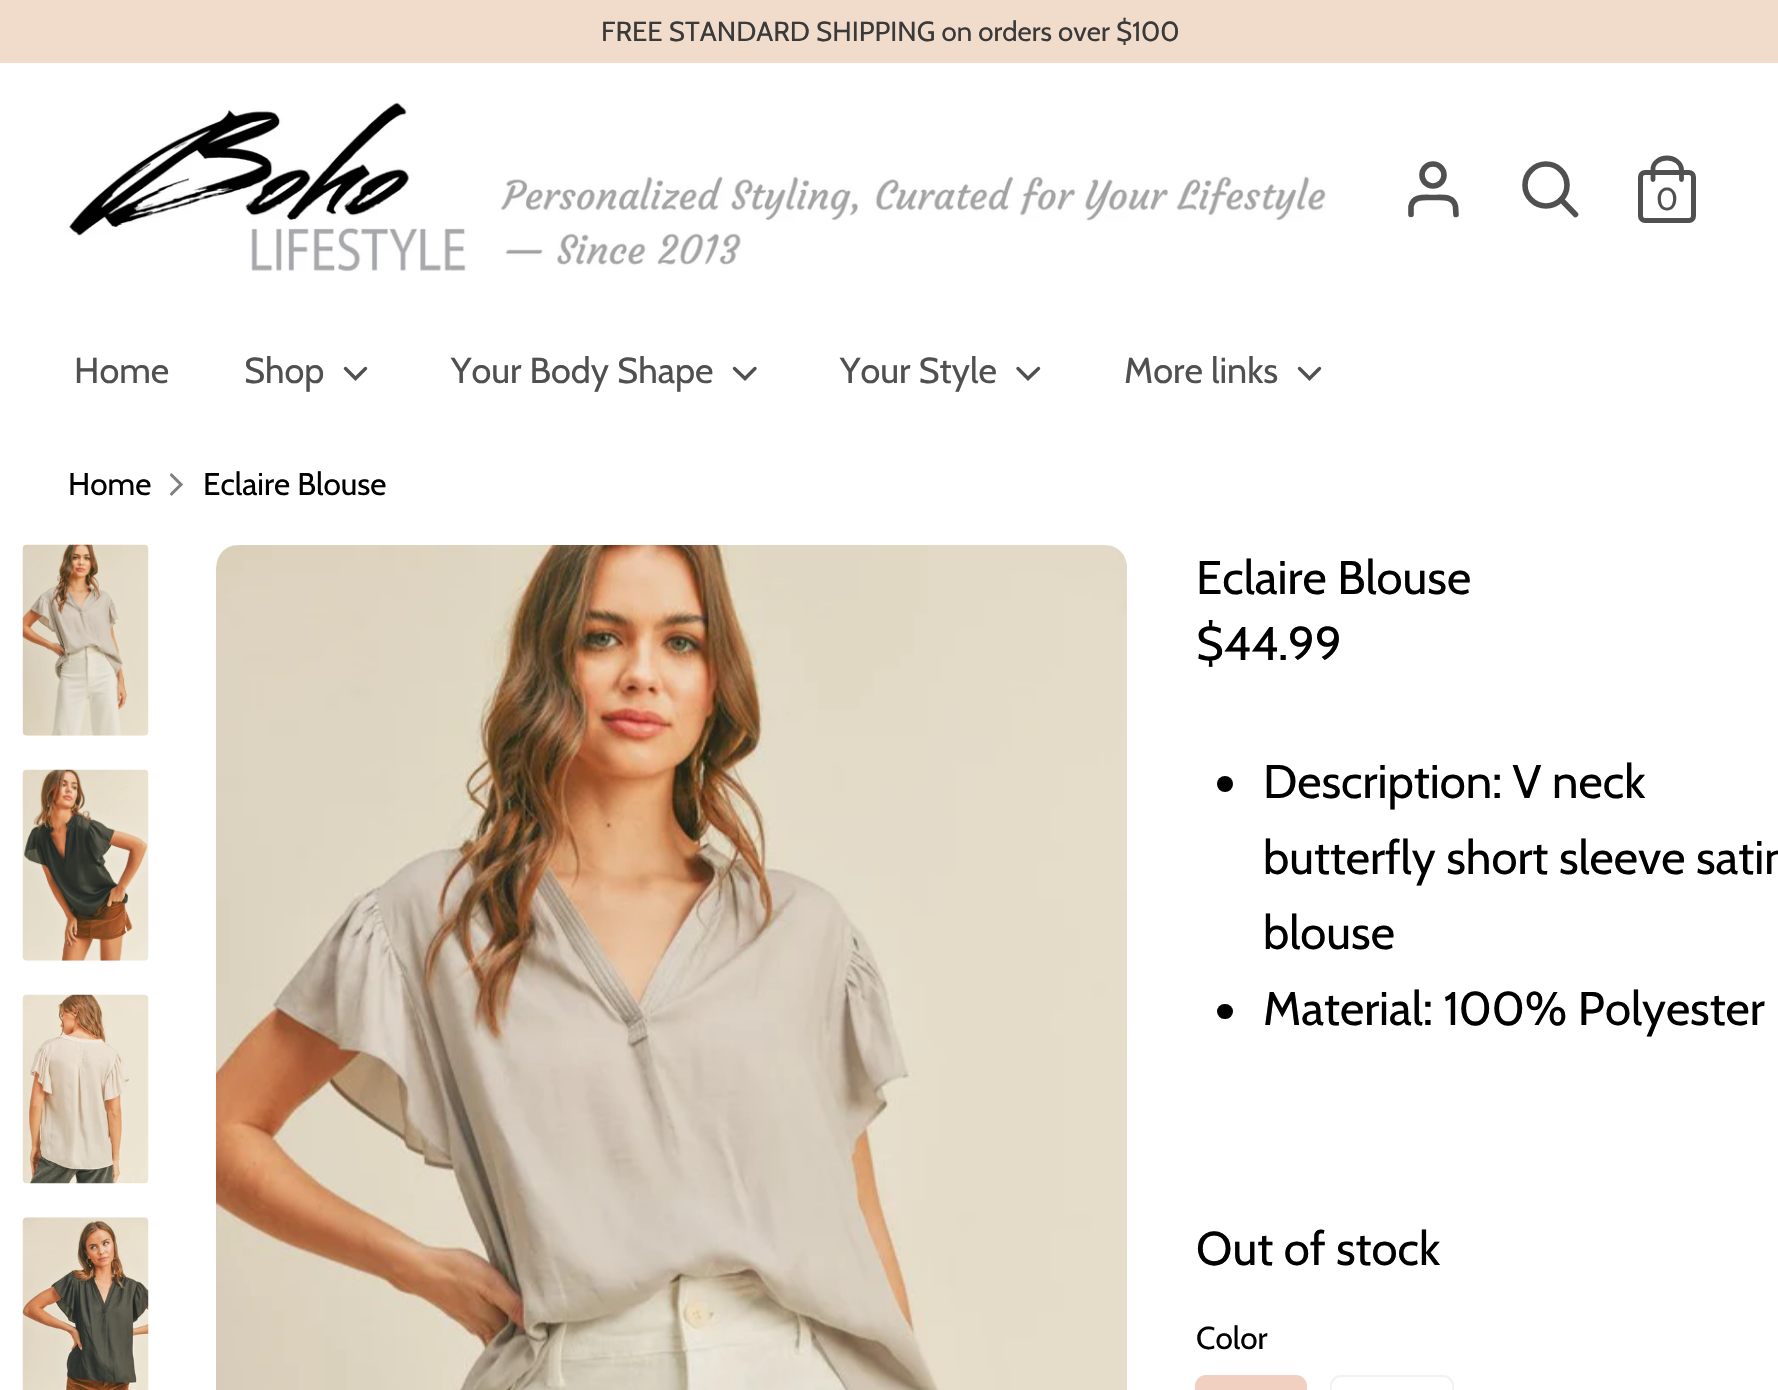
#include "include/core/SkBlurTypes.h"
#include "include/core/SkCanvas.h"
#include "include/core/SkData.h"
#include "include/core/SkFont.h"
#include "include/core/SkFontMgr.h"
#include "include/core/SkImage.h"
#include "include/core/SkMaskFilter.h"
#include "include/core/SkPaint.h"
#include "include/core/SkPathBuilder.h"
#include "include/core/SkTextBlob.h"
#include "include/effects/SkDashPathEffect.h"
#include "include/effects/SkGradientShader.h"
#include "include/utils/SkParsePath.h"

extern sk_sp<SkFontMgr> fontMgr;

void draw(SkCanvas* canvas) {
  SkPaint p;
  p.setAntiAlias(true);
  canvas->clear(SK_ColorWHITE);
  p.setColor(SkColorSetRGB(241, 219, 203));
  canvas->drawRect(SkRect::MakeLTRB(0, 0, 1778, 63), p);
  canvas->drawImageRect(SkImages::DeferredFromEncodedData(SkData::MakeFromFileName("images/1.png")), SkRect::MakeLTRB(67, 102, 1326, 272), SkSamplingOptions());
  p.setStyle(SkPaint::kStroke_Style);
  p.setStrokeWidth(5.6f);
  p.setStrokeCap(SkPaint::kRound_Cap);
  p.setColor(SkColorSetRGB(80, 80, 80));
  canvas->drawPath(SkPathBuilder().moveTo(1456, 214.5f).lineTo(1455.5f, 206.5f).cubicTo(1453.5f, 195.5f, 1441.5f, 197.5f, 1433, 197.5f).cubicTo(1425, 197.5f, 1413, 195.5f, 1411, 206.5f).lineTo(1411, 214.5f).detach(), p);
  p.setStrokeCap(SkPaint::kButt_Cap);
  canvas->drawCircle(1433, 175, 11, p);
  canvas->drawCircle(1546, 185, 21, p);
  p.setStrokeCap(SkPaint::kRound_Cap);
  canvas->drawPath(SkPathBuilder().moveTo(1575.5f, 214.5f).lineTo(1561, 199.5f).detach(), p);
  p.setStrokeWidth(5);
  p.setStrokeCap(SkPaint::kButt_Cap);
  canvas->drawRoundRect(SkRect::MakeLTRB(1640.5f, 172.5f, 1693.5f, 220.5f), 4.5f, 4.5f, p);
  p.setStrokeWidth(4.8f);
  p.setStrokeCap(SkPaint::kRound_Cap);
  canvas->drawPath(SkPathBuilder().moveTo(1653, 179.5f).lineTo(1653, 169.5f).cubicTo(1652.5f, 163.5f, 1659, 158, 1667, 158).cubicTo(1675, 158, 1681.5f, 163.5f, 1681.5f, 169.5f).lineTo(1681.5f, 179.5f).detach(), p);
  p.setStrokeWidth(3.4f);
  canvas->drawPath(SkPathBuilder().moveTo(345.5f, 368.5f).lineTo(355.5f, 378.5f).lineTo(365.5f, 368.5f).detach(), p);
  canvas->drawPath(SkPathBuilder().moveTo(734.5f, 368.5f).lineTo(745, 378.5f).lineTo(755, 368.5f).detach(), p);
  canvas->drawPath(SkPathBuilder().moveTo(1018, 368.5f).lineTo(1028, 378.5f).lineTo(1038.5f, 368.5f).detach(), p);
  canvas->drawPath(SkPathBuilder().moveTo(1299.5f, 368.5f).lineTo(1309.5f, 378.5f).lineTo(1319.5f, 368.5f).detach(), p);
  p.setStrokeWidth(3.1f);
  p.setColor(SkColorSetRGB(128, 128, 128));
  canvas->drawPath(SkPathBuilder().moveTo(171.5f, 494).lineTo(181, 484.5f).lineTo(171.5f, 475).detach(), p);
  canvas->drawImageRect(SkImages::DeferredFromEncodedData(SkData::MakeFromFileName("images/2.png")), SkRect::MakeLTRB(22, 544, 149, 736), SkSamplingOptions());
  canvas->drawImageRect(SkImages::DeferredFromEncodedData(SkData::MakeFromFileName("images/3.png")), SkRect::MakeLTRB(22, 769, 149, 961), SkSamplingOptions());
  canvas->drawImageRect(SkImages::DeferredFromEncodedData(SkData::MakeFromFileName("images/4.png")), SkRect::MakeLTRB(22, 994, 149, 1184), SkSamplingOptions());
  canvas->drawImageRect(SkImages::DeferredFromEncodedData(SkData::MakeFromFileName("images/5.png")), SkRect::MakeLTRB(22, 1217, 149, 1390), SkSamplingOptions());
  canvas->drawImageRect(SkImages::DeferredFromEncodedData(SkData::MakeFromFileName("images/6.png")), SkRect::MakeLTRB(216, 545, 1127, 1390), SkSamplingOptions());
  p.setStyle(SkPaint::kFill_Style);
  p.setColor(SK_ColorBLACK);
  canvas->drawCircle(1225, 784, 8, p);
  canvas->drawRoundRect(SkRect::MakeLTRB(1217, 1004, 1233, 1019), 7.5f, 7.5f, p);
  p.setColor(SkColorSetRGB(241, 208, 194));
  canvas->drawRoundRect(SkRect::MakeLTRB(1196, 1376, 1306, 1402), 10, 10, p);
  p.setStyle(SkPaint::kStroke_Style);
  p.setStrokeWidth(2);
  p.setStrokeCap(SkPaint::kButt_Cap);
  canvas->drawRoundRect(SkRect::MakeLTRB(1196, 1376, 1306, 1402), 10, 10, p);
  p.setColor(SkColorSetRGB(242, 242, 242));
  canvas->drawRoundRect(SkRect::MakeLTRB(1331, 1376, 1453, 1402), 10, 10, p);
  SkFont font1(fontMgr->matchFamilyStyle("Cabin", SkFontStyle::Normal()), 27.6f);
  font1.setSubpixel(true);
  p.setStyle(SkPaint::kFill_Style);
  p.setColor(SkColorSetRGB(58, 58, 58));
  canvas->drawString("FREE STANDARD SHIPPING on orders over $100", 601, 41, font1, p);
  SkFont font2(fontMgr->matchFamilyStyle("Cabin", SkFontStyle::Normal()), 31.5f);
  font2.setSubpixel(true);
  p.setColor(SkColorSetRGB(80, 80, 80));
  canvas->drawString("0", 1656, 210, font2, p);
  SkFont font3(fontMgr->matchFamilyStyle("Cabin", SkFontStyle::Normal()), 36);
  font3.setSubpixel(true);
  canvas->drawString("Home", 74, 383, font3, p);
  canvas->drawString("Shop", 244, 383, font3, p);
  canvas->drawString("Your Body Shape", 451, 383, font3, p);
  canvas->drawString("Your Style", 840, 383, font3, p);
  canvas->drawString("More links", 1124, 383, font3, p);
  p.setColor(SK_ColorBLACK);
  canvas->drawString("Home", 68, 495, font2, p);
  canvas->drawString("Eclaire Blouse", 203, 495, font2, p);
  SkFont font4(fontMgr->matchFamilyStyle("Cabin", SkFontStyle::Normal()), 47.25f);
  font4.setSubpixel(true);
  canvas->drawString("Eclaire Blouse", 1196, 594, font4, p);
  canvas->drawString("$44.99", 1196, 660, font4, p);
  canvas->drawString("Description: V neck", 1263, 798, font4, p);
  canvas->drawString("butterfly short sleeve satin", 1263, 874, font4, p);
  canvas->drawString("blouse", 1263, 949, font4, p);
  canvas->drawString("Material: 100% Polyester", 1263, 1025, font4, p);
  canvas->drawString("Out of stock", 1196, 1265, font4, p);
  canvas->drawString("Color", 1196, 1349, font2, p);
}
